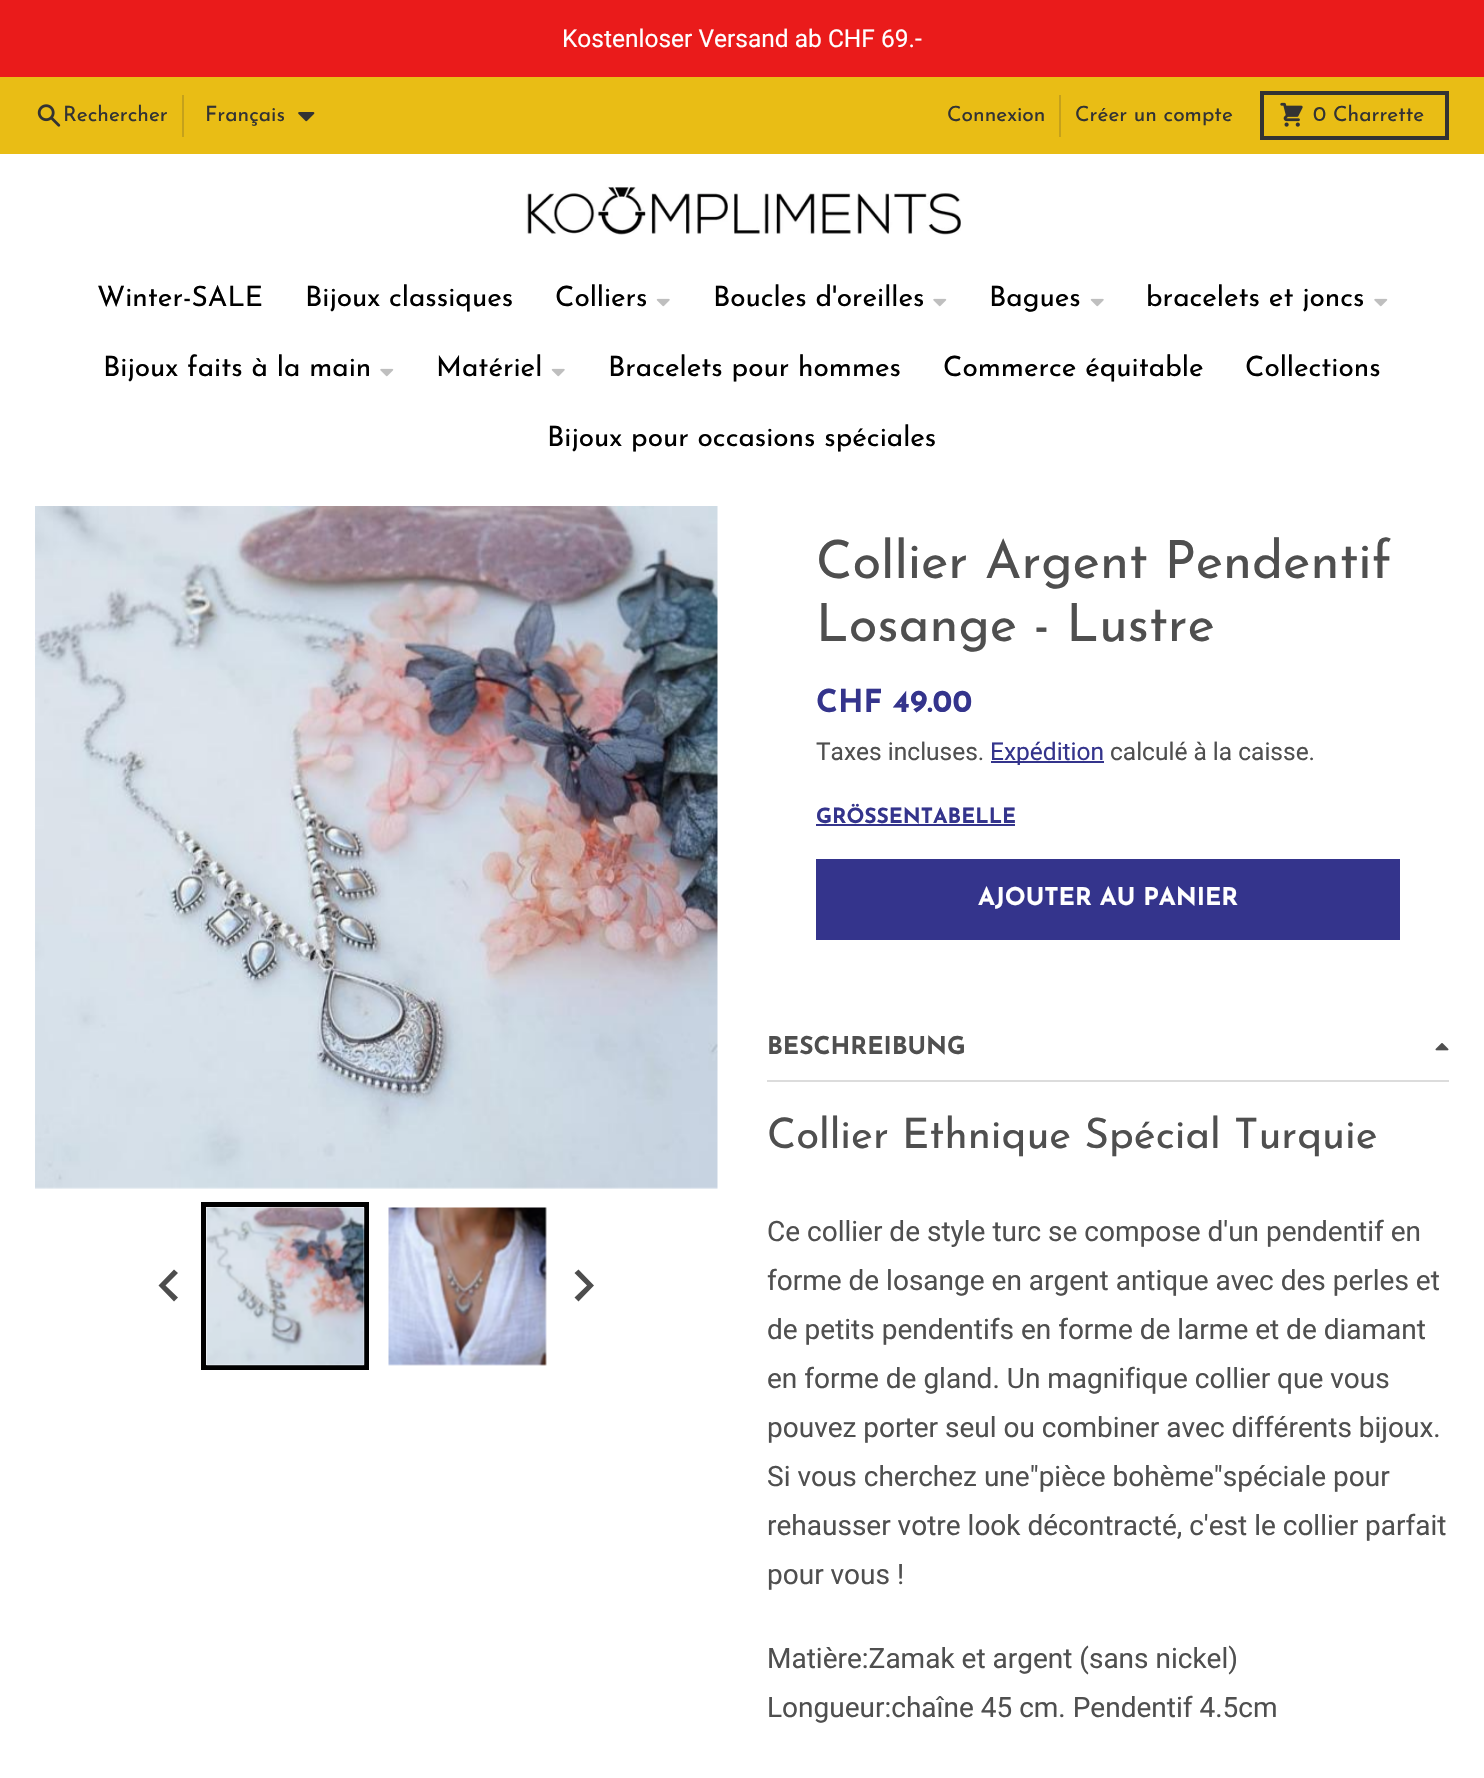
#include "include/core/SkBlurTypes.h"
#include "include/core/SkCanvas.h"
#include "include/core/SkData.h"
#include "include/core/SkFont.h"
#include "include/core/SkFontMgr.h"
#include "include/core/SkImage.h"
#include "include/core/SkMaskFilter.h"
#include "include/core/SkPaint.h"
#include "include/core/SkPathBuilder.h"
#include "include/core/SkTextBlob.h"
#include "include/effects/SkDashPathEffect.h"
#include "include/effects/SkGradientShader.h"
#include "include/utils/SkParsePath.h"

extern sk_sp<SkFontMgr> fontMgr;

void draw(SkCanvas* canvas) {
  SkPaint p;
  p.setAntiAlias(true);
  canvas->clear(SK_ColorWHITE);
  p.setColor(SkColorSetRGB(234, 27, 27));
  canvas->drawRect(SkRect::MakeLTRB(0, 0, 1484, 77), p);
  p.setColor(SkColorSetRGB(233, 189, 21));
  canvas->drawRect(SkRect::MakeLTRB(0, 77, 1484, 154), p);
  canvas->drawImageRect(SkImages::DeferredFromEncodedData(SkData::MakeFromFileName("images/1.png")), SkRect::MakeLTRB(37, 104, 61, 127), SkSamplingOptions());
  p.setColor(SkColorSetRGB(197, 161, 27));
  canvas->drawRect(SkRect::MakeLTRB(182, 95, 184, 137), p);
  canvas->drawImageRect(SkImages::DeferredFromEncodedData(SkData::MakeFromFileName("images/2.png")), SkRect::MakeLTRB(298, 112, 315, 122), SkSamplingOptions());
  canvas->drawRect(SkRect::MakeLTRB(1059, 95, 1061, 137), p);
  p.setStyle(SkPaint::kStroke_Style);
  p.setStrokeWidth(4);
  p.setColor(SkColorSetRGB(51, 51, 51));
  canvas->drawRect(SkRect::MakeLTRB(1262, 93, 1447, 138), p);
  canvas->drawImageRect(SkImages::DeferredFromEncodedData(SkData::MakeFromFileName("images/3.png")), SkRect::MakeLTRB(1280, 102, 1303, 127), SkSamplingOptions());
  canvas->drawImageRect(SkImages::DeferredFromEncodedData(SkData::MakeFromFileName("images/4.png")), SkRect::MakeLTRB(526, 186, 961, 235), SkSamplingOptions());
  canvas->drawImageRect(SkImages::DeferredFromEncodedData(SkData::MakeFromFileName("images/5.png")), SkRect::MakeLTRB(656, 298, 670, 307), SkSamplingOptions());
  canvas->drawImageRect(SkImages::DeferredFromEncodedData(SkData::MakeFromFileName("images/6.png")), SkRect::MakeLTRB(933, 298, 947, 307), SkSamplingOptions());
  canvas->drawImageRect(SkImages::DeferredFromEncodedData(SkData::MakeFromFileName("images/5.png")), SkRect::MakeLTRB(1090, 298, 1104, 307), SkSamplingOptions());
  canvas->drawImageRect(SkImages::DeferredFromEncodedData(SkData::MakeFromFileName("images/6.png")), SkRect::MakeLTRB(1374, 298, 1388, 307), SkSamplingOptions());
  canvas->drawImageRect(SkImages::DeferredFromEncodedData(SkData::MakeFromFileName("images/6.png")), SkRect::MakeLTRB(380, 368, 394, 377), SkSamplingOptions());
  canvas->drawImageRect(SkImages::DeferredFromEncodedData(SkData::MakeFromFileName("images/5.png")), SkRect::MakeLTRB(551, 368, 565, 377), SkSamplingOptions());
  canvas->drawImageRect(SkImages::DeferredFromEncodedData(SkData::MakeFromFileName("images/7.png")), SkRect::MakeLTRB(35, 506, 718, 1189), SkSamplingOptions());
  p.setStrokeWidth(5);
  p.setColor(SK_ColorBLACK);
  canvas->drawRect(SkRect::MakeLTRB(203.5f, 1204.5f, 366.5f, 1367.5f), p);
  canvas->drawImageRect(SkImages::DeferredFromEncodedData(SkData::MakeFromFileName("images/8.png")), SkRect::MakeLTRB(206, 1207, 365, 1366), SkSamplingOptions());
  canvas->drawImageRect(SkImages::DeferredFromEncodedData(SkData::MakeFromFileName("images/9.png")), SkRect::MakeLTRB(388, 1207, 547, 1366), SkSamplingOptions());
  p.setStyle(SkPaint::kFill_Style);
  p.setColor(SkColorSetRGB(77, 77, 77));
  canvas->drawPath(SkPathBuilder().moveTo(174, 1269.5f).lineTo(178, 1273).lineTo(165.5f, 1285.5f).lineTo(178, 1297.5f).lineTo(174, 1301.5f).lineTo(158.5f, 1285.5f).close().detach(), p);
  canvas->drawPath(SkPathBuilder().moveTo(578.5f, 1269.5f).lineTo(574.5f, 1273).lineTo(587, 1285.5f).lineTo(574.5f, 1297.5f).lineTo(578.5f, 1301.5f).lineTo(594, 1285.5f).close().detach(), p);
  p.setColor(SkColorSetRGB(52, 52, 140));
  canvas->drawRect(SkRect::MakeLTRB(991, 761, 1104, 763), p);
  canvas->drawRect(SkRect::MakeLTRB(816, 824, 1015, 826), p);
  canvas->drawRect(SkRect::MakeLTRB(816, 859, 1400, 940), p);
  p.setColor(SkColorSetRGB(220, 220, 220));
  canvas->drawRect(SkRect::MakeLTRB(767, 1080, 1449, 1082), p);
  canvas->drawImageRect(SkImages::DeferredFromEncodedData(SkData::MakeFromFileName("images/10.png")), SkRect::MakeLTRB(1435, 1043, 1449, 1051), SkSamplingOptions());
  SkFont font1(fontMgr->matchFamilyStyle("Roboto", SkFontStyle::Normal()), 24.5f);
  font1.setSubpixel(true);
  p.setColor(SK_ColorWHITE);
  canvas->drawString("Kostenloser Versand ab CHF 69.-", 562, 47, font1, p);
  SkFont font2(fontMgr->matchFamilyStyle("Josefin Sans", SkFontStyle::Normal()), 21);
  font2.setSubpixel(true);
  p.setColor(SkColorSetRGB(51, 51, 51));
  canvas->drawString("Rechercher", 63, 121, font2, p);
  canvas->drawString("Français", 205, 121, font2, p);
  canvas->drawString("Connexion", 947, 121, font2, p);
  canvas->drawString("Créer un compte", 1075, 121, font2, p);
  canvas->drawString("0", 1313, 121, font2, p);
  canvas->drawString("Charrette", 1333, 121, font2, p);
  SkFont font3(fontMgr->matchFamilyStyle("Josefin Sans", SkFontStyle::Normal()), 28);
  font3.setSubpixel(true);
  p.setColor(SK_ColorBLACK);
  canvas->drawString("Winter-SALE", 97, 306, font3, p);
  canvas->drawString("Bijoux classiques", 305, 306, font3, p);
  canvas->drawString("Colliers", 555, 306, font3, p);
  canvas->drawString("Boucles d'oreilles", 713, 306, font3, p);
  canvas->drawString("Bagues", 989, 306, font3, p);
  canvas->drawString("bracelets et joncs", 1146, 306, font3, p);
  canvas->drawString("Bijoux faits à la main", 103, 376, font3, p);
  canvas->drawString("Matériel", 436, 376, font3, p);
  canvas->drawString("Bracelets pour hommes", 608, 376, font3, p);
  canvas->drawString("Commerce équitable", 943, 376, font3, p);
  canvas->drawString("Collections", 1245, 376, font3, p);
  canvas->drawString("Bijoux pour occasions spéciales", 547, 446, font3, p);
  SkFont font4(fontMgr->matchFamilyStyle("Josefin Sans", SkFontStyle::Normal()), 52.5f);
  font4.setSubpixel(true);
  p.setColor(SkColorSetRGB(79, 79, 79));
  canvas->drawString("Collier Argent Pendentif", 816, 578, font4, p);
  canvas->drawString("Losange - Lustre", 816, 641, font4, p);
  SkFont font5(fontMgr->matchFamilyStyle("Josefin Sans", SkFontStyle::Bold()), 31.5f);
  font5.setSubpixel(true);
  p.setColor(SkColorSetRGB(52, 52, 140));
  canvas->drawString("CHF 49.00", 816, 712, font5, p);
  p.setColor(SkColorSetRGB(79, 79, 79));
  canvas->drawString("Taxes incluses.", 816, 760, font1, p);
  p.setColor(SkColorSetRGB(52, 52, 140));
  canvas->drawString("Expédition", 990, 760, font1, p);
  p.setColor(SkColorSetRGB(79, 79, 79));
  canvas->drawString("calculé à la caisse.", 1110, 760, font1, p);
  SkFont font6(fontMgr->matchFamilyStyle("Josefin Sans", SkFontStyle::Bold()), 21);
  font6.setSubpixel(true);
  p.setColor(SkColorSetRGB(52, 52, 140));
  canvas->drawString("GRÖSSENTABELLE", 816, 823, font6, p);
  SkFont font7(fontMgr->matchFamilyStyle("Josefin Sans", SkFontStyle::Bold()), 24.5f);
  font7.setSubpixel(true);
  p.setColor(SK_ColorWHITE);
  canvas->drawString("AJOUTER AU PANIER", 978, 905, font7, p);
  p.setColor(SkColorSetRGB(79, 79, 79));
  canvas->drawString("BESCHREIBUNG", 767, 1054, font7, p);
  SkFont font8(fontMgr->matchFamilyStyle("Josefin Sans", SkFontStyle::Normal()), 42);
  font8.setSubpixel(true);
  canvas->drawString("Collier Ethnique Spécial Turquie", 767, 1148, font8, p);
  SkFont font9(fontMgr->matchFamilyStyle("Roboto", SkFontStyle::Normal()), 28);
  font9.setSubpixel(true);
  canvas->drawString("Ce collier de style turc se compose d'un pendentif en", 767, 1241, font9, p);
  canvas->drawString("forme de losange en argent antique avec des perles et", 767, 1290, font9, p);
  canvas->drawString("de petits pendentifs en forme de larme et de diamant", 767, 1339, font9, p);
  canvas->drawString("en forme de gland. Un magnifique collier que vous", 767, 1388, font9, p);
  canvas->drawString("pouvez porter seul ou combiner avec différents bijoux.", 767, 1437, font9, p);
  canvas->drawString("Si vous cherchez une\"pièce bohème\"spéciale pour", 767, 1486, font9, p);
  canvas->drawString("rehausser votre look décontracté, c'est le collier parfait", 767, 1535, font9, p);
  canvas->drawString("pour vous !", 767, 1584, font9, p);
  canvas->drawString("Matière:Zamak et argent (sans nickel)", 767, 1668, font9, p);
  canvas->drawString("Longueur:chaîne 45 cm. Pendentif 4.5cm", 767, 1717, font9, p);
}
